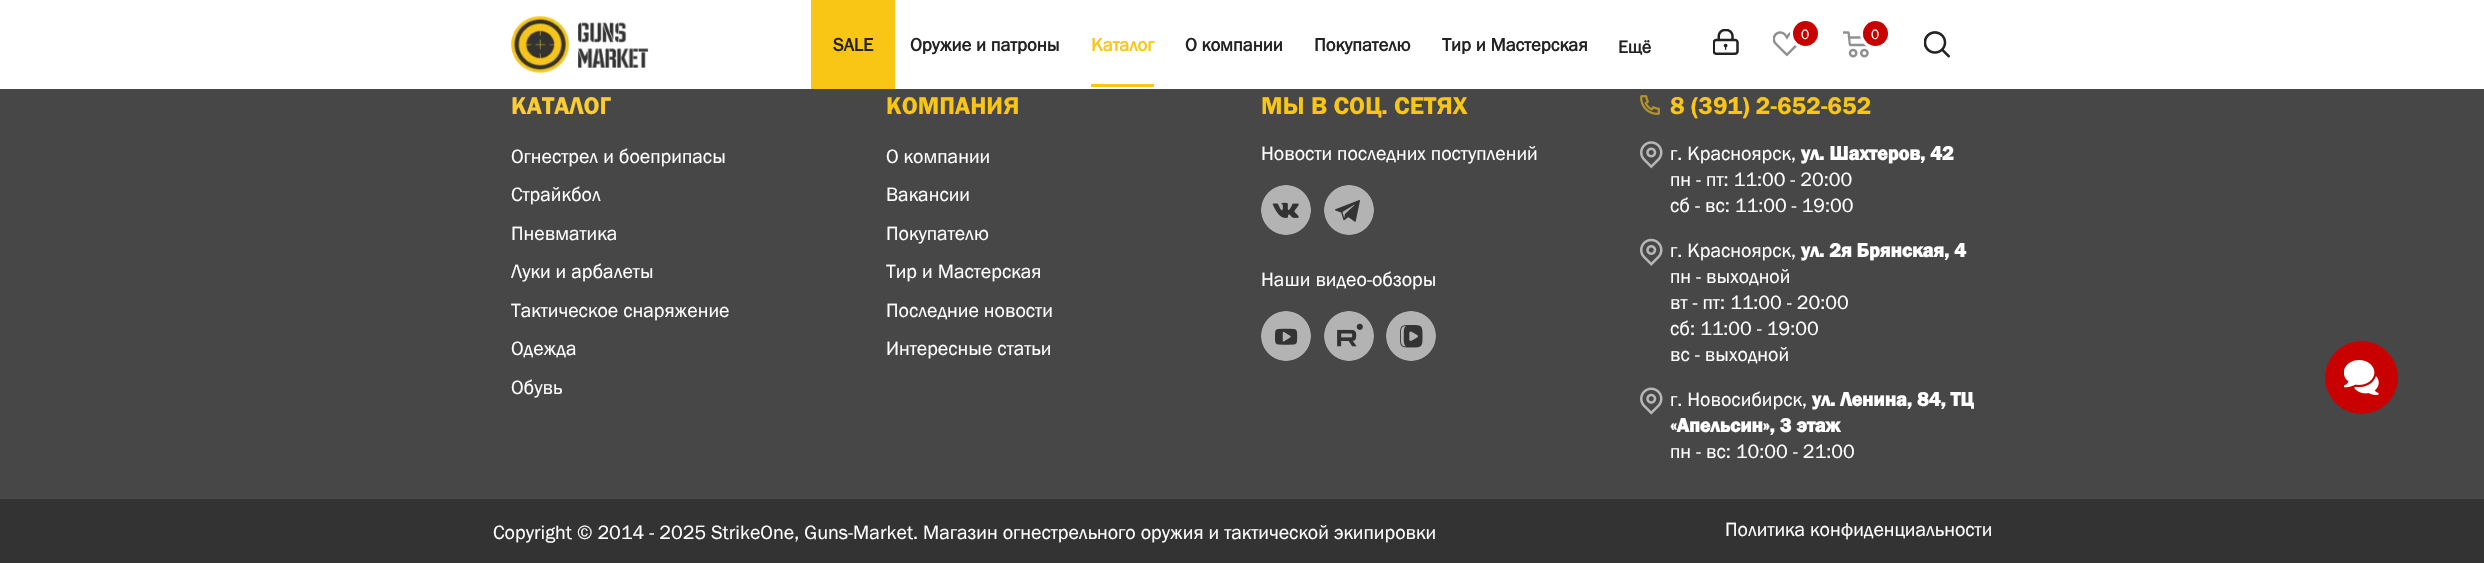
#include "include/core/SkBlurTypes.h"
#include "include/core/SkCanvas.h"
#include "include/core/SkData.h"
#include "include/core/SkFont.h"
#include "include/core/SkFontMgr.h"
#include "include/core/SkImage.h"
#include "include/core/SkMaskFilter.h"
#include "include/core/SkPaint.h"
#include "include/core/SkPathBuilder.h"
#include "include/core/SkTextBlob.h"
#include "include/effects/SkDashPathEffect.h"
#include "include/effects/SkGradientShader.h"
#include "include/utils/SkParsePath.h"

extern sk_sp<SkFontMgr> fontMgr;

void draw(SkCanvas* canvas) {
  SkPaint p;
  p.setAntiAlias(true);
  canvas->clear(SkColorSetRGB(71, 71, 71));
  p.setColor(SK_ColorWHITE);
  canvas->drawRect(SkRect::MakeLTRB(0, 0, 2484, 89), p);
  canvas->drawImageRect(SkImages::DeferredFromEncodedData(SkData::MakeFromFileName("images/1.png")), SkRect::MakeLTRB(511, 15, 649, 73), SkSamplingOptions());
  p.setColor(SkColorSetRGB(249, 198, 21));
  canvas->drawRect(SkRect::MakeLTRB(811, 0, 895, 89), p);
  canvas->drawRect(SkRect::MakeLTRB(1091, 84, 1154, 87), p);
  canvas->drawImageRect(SkImages::DeferredFromEncodedData(SkData::MakeFromFileName("images/2.png")), SkRect::MakeLTRB(1713, 29, 1739, 55), SkSamplingOptions());
  canvas->drawImageRect(SkImages::DeferredFromEncodedData(SkData::MakeFromFileName("images/3.png")), SkRect::MakeLTRB(1773, 31, 1800, 57), SkSamplingOptions());
  p.setStyle(SkPaint::kStroke_Style);
  p.setStrokeWidth(3);
  p.setColor(SK_ColorWHITE);
  canvas->drawCircle(1805, 34, 13.5f, p);
  p.setStyle(SkPaint::kFill_Style);
  p.setColor(SkColorSetRGB(200, 0, 0));
  canvas->drawCircle(1805.5f, 33.5f, 12.5f, p);
  canvas->drawImageRect(SkImages::DeferredFromEncodedData(SkData::MakeFromFileName("images/4.png")), SkRect::MakeLTRB(1843, 31, 1869, 58), SkSamplingOptions());
  p.setStyle(SkPaint::kStroke_Style);
  p.setColor(SK_ColorWHITE);
  canvas->drawCircle(1875, 34, 13.5f, p);
  p.setStyle(SkPaint::kFill_Style);
  p.setColor(SkColorSetRGB(200, 0, 0));
  canvas->drawCircle(1875.5f, 33.5f, 12.5f, p);
  canvas->drawImageRect(SkImages::DeferredFromEncodedData(SkData::MakeFromFileName("images/5.png")), SkRect::MakeLTRB(1924, 31, 1950, 58), SkSamplingOptions());
  canvas->drawImageRect(SkImages::DeferredFromEncodedData(SkData::MakeFromFileName("images/6.png")), SkRect::MakeLTRB(1261, 185, 1311, 235), SkSamplingOptions());
  canvas->drawImageRect(SkImages::DeferredFromEncodedData(SkData::MakeFromFileName("images/7.png")), SkRect::MakeLTRB(1324, 185, 1374, 235), SkSamplingOptions());
  canvas->drawImageRect(SkImages::DeferredFromEncodedData(SkData::MakeFromFileName("images/8.png")), SkRect::MakeLTRB(1261, 311, 1311, 361), SkSamplingOptions());
  canvas->drawImageRect(SkImages::DeferredFromEncodedData(SkData::MakeFromFileName("images/9.png")), SkRect::MakeLTRB(1324, 311, 1374, 361), SkSamplingOptions());
  canvas->drawImageRect(SkImages::DeferredFromEncodedData(SkData::MakeFromFileName("images/10.png")), SkRect::MakeLTRB(1386, 311, 1436, 361), SkSamplingOptions());
  canvas->drawImageRect(SkImages::DeferredFromEncodedData(SkData::MakeFromFileName("images/11.png")), SkRect::MakeLTRB(1640, 95, 1660, 115), SkSamplingOptions());
  canvas->drawImageRect(SkImages::DeferredFromEncodedData(SkData::MakeFromFileName("images/12.png")), SkRect::MakeLTRB(1640, 141, 1663, 169), SkSamplingOptions());
  canvas->drawImageRect(SkImages::DeferredFromEncodedData(SkData::MakeFromFileName("images/13.png")), SkRect::MakeLTRB(1640, 238, 1663, 266), SkSamplingOptions());
  canvas->drawImageRect(SkImages::DeferredFromEncodedData(SkData::MakeFromFileName("images/14.png")), SkRect::MakeLTRB(1640, 387, 1663, 415), SkSamplingOptions());
  p.setColor(SkColorSetRGB(51, 51, 51));
  canvas->drawRect(SkRect::MakeLTRB(0, 499, 2484, 563), p);
  p.setColor(SkColorSetRGB(200, 0, 0));
  canvas->drawCircle(2361.5f, 377.5f, 36.5f, p);
  canvas->drawImageRect(SkImages::DeferredFromEncodedData(SkData::MakeFromFileName("images/15.png")), SkRect::MakeLTRB(2344, 360, 2379, 395), SkSamplingOptions());
  SkFont font1(fontMgr->matchFamilyStyle("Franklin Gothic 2", SkFontStyle::Bold()), 18.75f);
  font1.setSubpixel(true);
  p.setColor(SkColorSetRGB(34, 34, 34));
  canvas->drawString("SALE", 833, 51, font1, p);
  canvas->drawString("Оружие и патроны", 910, 51, font1, p);
  p.setColor(SkColorSetRGB(249, 198, 21));
  canvas->drawString("Каталог", 1091, 51, font1, p);
  p.setColor(SkColorSetRGB(34, 34, 34));
  canvas->drawString("О компании", 1185, 51, font1, p);
  canvas->drawString("Покупателю", 1314, 51, font1, p);
  canvas->drawString("Тир и Мастерская", 1442, 51, font1, p);
  SkFont font2(fontMgr->matchFamilyStyle("Franklin Gothic 2", SkFontStyle::Bold()), 18);
  font2.setSubpixel(true);
  canvas->drawString("Ещё", 1618, 53, font2, p);
  SkFont font3(fontMgr->matchFamilyStyle("Franklin Gothic 2", SkFontStyle::Normal()), 14);
  font3.setSubpixel(true);
  p.setColor(SK_ColorWHITE);
  canvas->drawString("0", 1801, 39, font3, p);
  canvas->drawString("0", 1871, 39, font3, p);
  SkFont font4(fontMgr->matchFamilyStyle("Franklin Gothic", SkFontStyle::Normal()), 25);
  font4.setSubpixel(true);
  p.setColor(SkColorSetRGB(250, 205, 51));
  canvas->drawString("КАТАЛОГ", 511, 114, font4, p);
  SkFont font5(fontMgr->matchFamilyStyle("Franklin Gothic 2", SkFontStyle::Normal()), 20);
  font5.setSubpixel(true);
  p.setColor(SK_ColorWHITE);
  canvas->drawString("Огнестрел и боеприпасы", 511, 163, font5, p);
  canvas->drawString("Страйкбол", 511, 201, font5, p);
  canvas->drawString("Пневматика", 511, 240, font5, p);
  canvas->drawString("Луки и арбалеты", 511, 278, font5, p);
  canvas->drawString("Тактическое снаряжение", 511, 317, font5, p);
  canvas->drawString("Одежда", 511, 355, font5, p);
  canvas->drawString("Обувь", 511, 394, font5, p);
  p.setColor(SkColorSetRGB(249, 198, 21));
  canvas->drawString("КОМПАНИЯ", 886, 114, font4, p);
  p.setColor(SK_ColorWHITE);
  canvas->drawString("О компании", 886, 163, font5, p);
  canvas->drawString("Вакансии", 886, 201, font5, p);
  canvas->drawString("Покупателю", 886, 240, font5, p);
  canvas->drawString("Тир и Мастерская", 886, 278, font5, p);
  canvas->drawString("Последние новости", 886, 317, font5, p);
  canvas->drawString("Интересные статьи", 886, 355, font5, p);
  p.setColor(SkColorSetRGB(249, 198, 21));
  canvas->drawString("МЫ В СОЦ. СЕТЯХ", 1261, 114, font4, p);
  p.setColor(SK_ColorWHITE);
  canvas->drawString("Новости последних поступлений", 1261, 160, font5, p);
  canvas->drawString("Наши видео-обзоры", 1261, 286, font5, p);
  p.setColor(SkColorSetRGB(249, 198, 21));
  canvas->drawString("8 (391) 2-652-652", 1670, 114, font4, p);
  p.setColor(SK_ColorWHITE);
  canvas->drawString("г. Красноярск,", 1670, 160, font5, p);
  SkFont font6(fontMgr->matchFamilyStyle("Franklin Gothic", SkFontStyle::Bold()), 20);
  font6.setSubpixel(true);
  canvas->drawString("ул. Шахтеров, 42", 1801, 160, font6, p);
  canvas->drawString("пн - пт: 11:00 - 20:00", 1670, 186, font5, p);
  canvas->drawString("сб - вс: 11:00 - 19:00", 1670, 212, font5, p);
  canvas->drawString("г. Красноярск,", 1670, 257, font5, p);
  canvas->drawString("ул. 2я Брянская, 4", 1801, 257, font6, p);
  canvas->drawString("пн - выходной", 1670, 283, font5, p);
  canvas->drawString("вт - пт: 11:00 - 20:00", 1670, 309, font5, p);
  canvas->drawString("сб: 11:00 - 19:00", 1670, 335, font5, p);
  canvas->drawString("вс - выходной", 1670, 361, font5, p);
  canvas->drawString("г. Новосибирск,", 1670, 406, font5, p);
  canvas->drawString("ул. Ленина, 84, ТЦ", 1812, 406, font6, p);
  canvas->drawString("«Апельсин», 3 этаж", 1670, 432, font6, p);
  canvas->drawString("пн - вс: 10:00 - 21:00", 1670, 458, font5, p);
  canvas->drawString("Copyright © 2014 - 2025 StrikeOne, Guns-Market. Магазин огнестрельного оружия и тактической экипировки", 493, 539, font5, p);
  canvas->drawString("Политика конфиденциальности", 1725, 536, font5, p);
}
